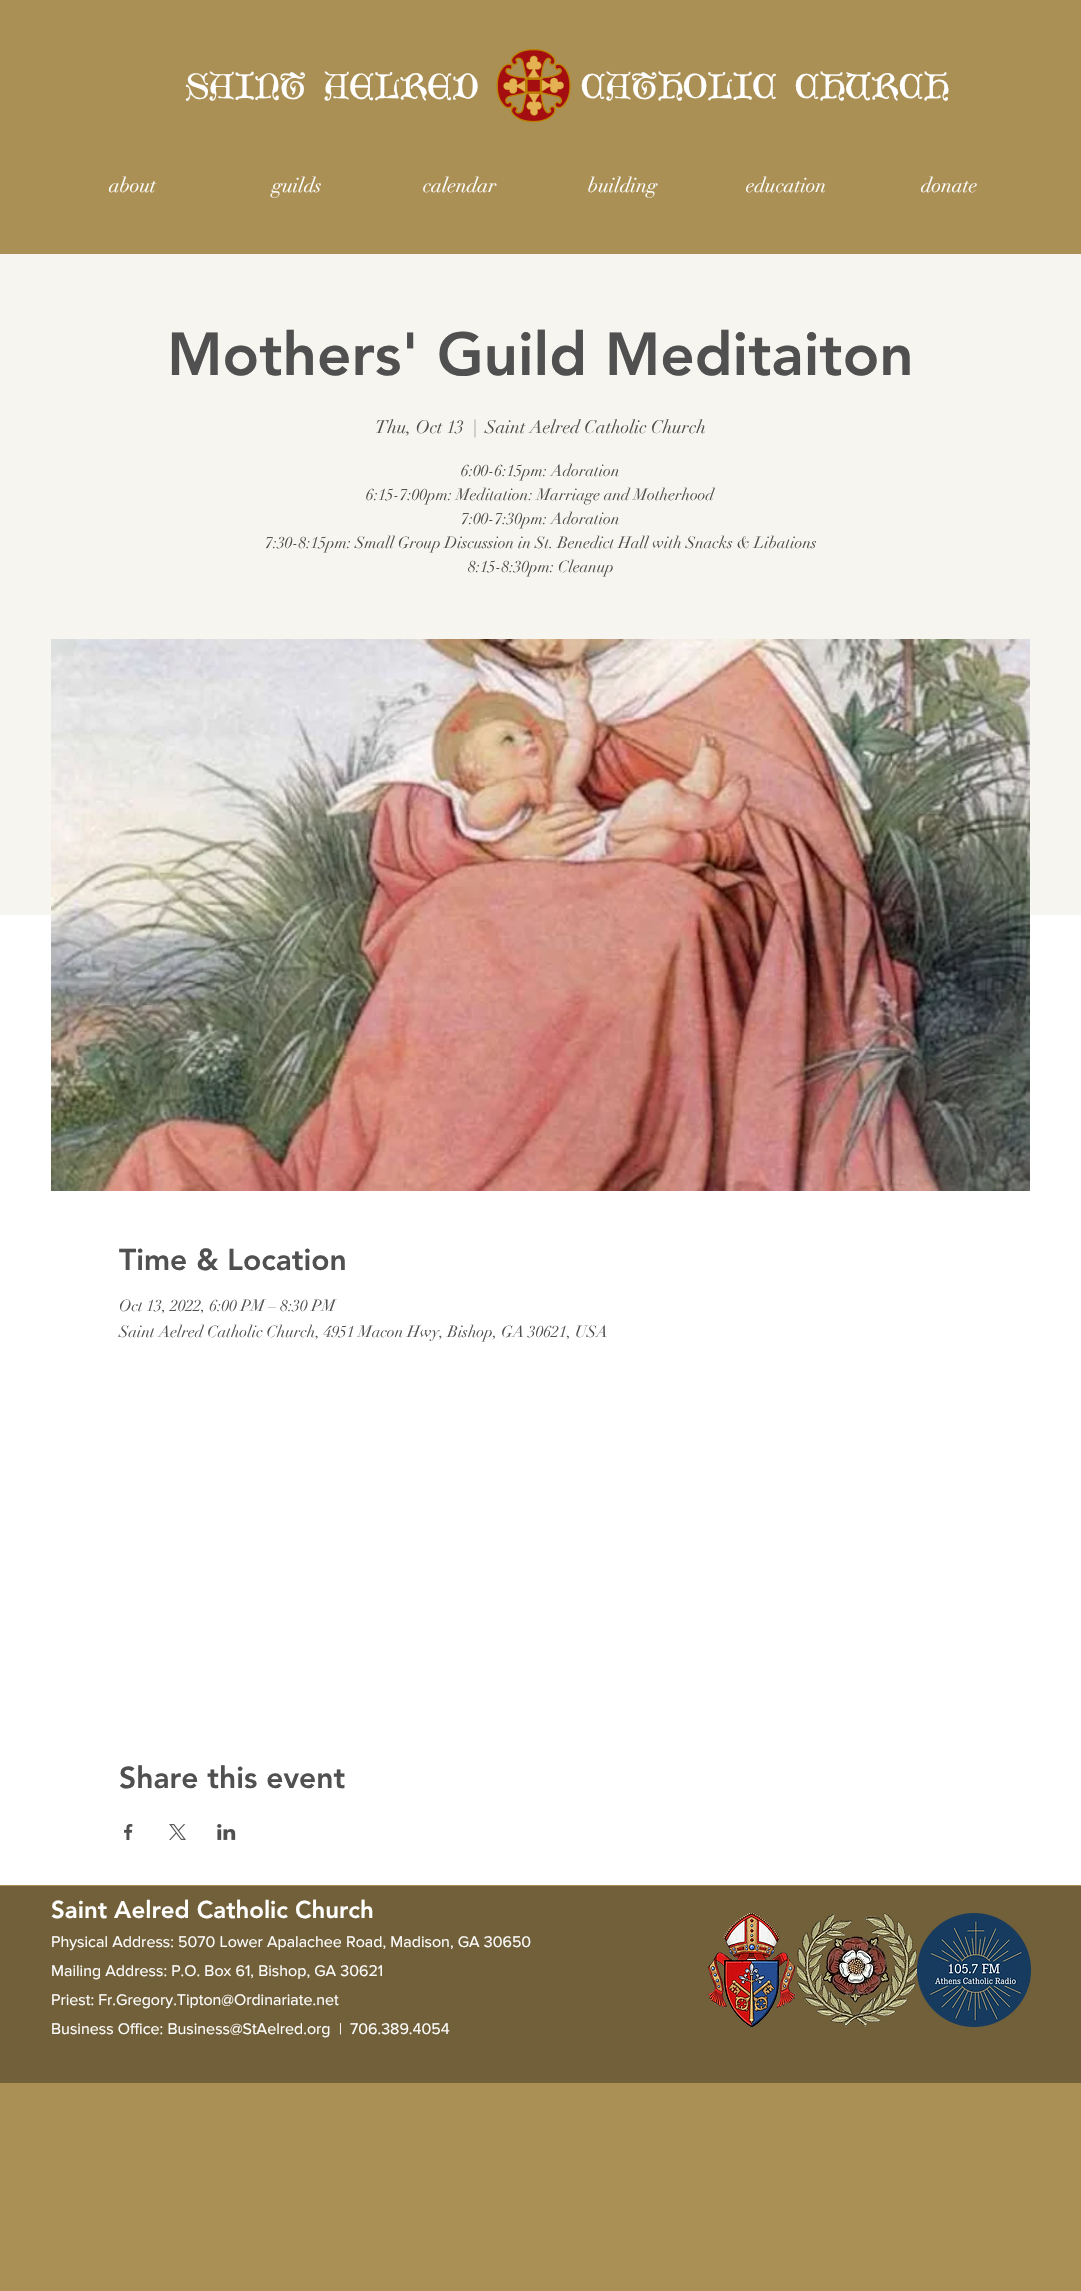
#include "include/core/SkBlurTypes.h"
#include "include/core/SkCanvas.h"
#include "include/core/SkData.h"
#include "include/core/SkFont.h"
#include "include/core/SkFontMgr.h"
#include "include/core/SkImage.h"
#include "include/core/SkMaskFilter.h"
#include "include/core/SkPaint.h"
#include "include/core/SkPathBuilder.h"
#include "include/core/SkTextBlob.h"
#include "include/effects/SkDashPathEffect.h"
#include "include/effects/SkGradientShader.h"
#include "include/utils/SkParsePath.h"

extern sk_sp<SkFontMgr> fontMgr;

void draw(SkCanvas* canvas) {
  SkPaint p;
  p.setAntiAlias(true);
  canvas->clear(SkColorSetRGB(170, 144, 85));
  canvas->drawImageRect(SkImages::DeferredFromEncodedData(SkData::MakeFromFileName("images/1.png")), SkRect::MakeLTRB(496, 49, 571, 123), SkSamplingOptions());
  p.setColor(SkColorSetRGB(247, 245, 239));
  canvas->drawRect(SkRect::MakeLTRB(0, 254, 1081, 915), p);
  p.setColor(SK_ColorWHITE);
  canvas->drawRect(SkRect::MakeLTRB(0, 915, 1081, 1885), p);
  canvas->drawImageRect(SkImages::DeferredFromEncodedData(SkData::MakeFromFileName("images/2.png")), SkRect::MakeLTRB(51, 639, 1030, 1191), SkSamplingOptions());
  canvas->drawImageRect(SkImages::DeferredFromEncodedData(SkData::MakeFromFileName("images/3.png")), SkRect::MakeLTRB(124, 1824, 133, 1840), SkSamplingOptions());
  canvas->drawImageRect(SkImages::DeferredFromEncodedData(SkData::MakeFromFileName("images/4.png")), SkRect::MakeLTRB(169, 1824, 186, 1840), SkSamplingOptions());
  canvas->drawImageRect(SkImages::DeferredFromEncodedData(SkData::MakeFromFileName("images/5.png")), SkRect::MakeLTRB(217, 1824, 236, 1840), SkSamplingOptions());
  p.setColor(SkColorSetRGB(113, 96, 57));
  canvas->drawRect(SkRect::MakeLTRB(0, 1886, 1081, 2083), p);
  canvas->drawImageRect(SkImages::DeferredFromEncodedData(SkData::MakeFromFileName("images/6.png")), SkRect::MakeLTRB(707, 1913, 796, 2027), SkSamplingOptions());
  canvas->drawImageRect(SkImages::DeferredFromEncodedData(SkData::MakeFromFileName("images/7.png")), SkRect::MakeLTRB(797, 1913, 917, 2027), SkSamplingOptions());
  canvas->drawImageRect(SkImages::DeferredFromEncodedData(SkData::MakeFromFileName("images/8.png")), SkRect::MakeLTRB(917, 1913, 1031, 2027), SkSamplingOptions());
  SkFont font1(fontMgr->matchFamilyStyle("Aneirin", SkFontStyle::Normal()), 30);
  font1.setSubpixel(true);
  p.setColor(SK_ColorWHITE);
  canvas->drawString("SAINT AELRED", 185, 98, font1, p);
  canvas->drawString("CATHOLIC CHURCH", 581, 98, font1, p);
  SkFont font2(fontMgr->matchFamilyStyle("didot", SkFontStyle::Normal()), 20);
  font2.setSubpixel(true);
  canvas->drawString("about", 109, 192, font2, p);
  canvas->drawString("guilds", 272, 192, font2, p);
  canvas->drawString("calendar", 423, 192, font2, p);
  canvas->drawString("building", 588, 192, font2, p);
  canvas->drawString("education", 746, 192, font2, p);
  canvas->drawString("donate", 921, 192, font2, p);
  SkFont font3(fontMgr->matchFamilyStyle("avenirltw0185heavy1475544", SkFontStyle(900, SkFontStyle::kNormal_Width, SkFontStyle::kUpright_Slant)), 60);
  font3.setSubpixel(true);
  p.setColor(SkColorSetRGB(80, 80, 80));
  canvas->drawString("Mothers' Guild Meditaiton", 167, 375, font3, p);
  SkFont font4(fontMgr->matchFamilyStyle("didot", SkFontStyle::Normal()), 18);
  font4.setSubpixel(true);
  canvas->drawString("Thu, Oct 13", 375, 433, font4, p);
  canvas->drawString("|", 473, 433, font4, p);
  canvas->drawString("Saint Aelred Catholic Church", 485, 433, font4, p);
  SkFont font5(fontMgr->matchFamilyStyle("didot", SkFontStyle::Normal()), 16);
  font5.setSubpixel(true);
  canvas->drawString("6:00-6:15pm: Adoration", 461, 476, font5, p);
  canvas->drawString("6:15-7:00pm: Meditation: Marriage and Motherhood", 366, 500, font5, p);
  canvas->drawString("7:00-7:30pm: Adoration", 461, 524, font5, p);
  canvas->drawString("7:30-8:15pm: Small Group Discussion in St. Benedict Hall with Snacks & Libations", 265, 548, font5, p);
  canvas->drawString("8:15-8:30pm: Cleanup", 468, 572, font5, p);
  SkFont font6(fontMgr->matchFamilyStyle("avenirltw0185heavy1475544", SkFontStyle(900, SkFontStyle::kNormal_Width, SkFontStyle::kUpright_Slant)), 30);
  font6.setSubpixel(true);
  canvas->drawString("Time & Location", 119, 1270, font6, p);
  canvas->drawString("Oct 13, 2022, 6:00 PM – 8:30 PM", 119, 1311, font5, p);
  canvas->drawString("Saint Aelred Catholic Church, 4951 Macon Hwy, Bishop, GA 30621, USA", 119, 1337, font5, p);
  canvas->drawString("Share this event", 119, 1788, font6, p);
  SkFont font7(fontMgr->matchFamilyStyle("avenirltw0185heavy1475544", SkFontStyle(900, SkFontStyle::kNormal_Width, SkFontStyle::kUpright_Slant)), 24);
  font7.setSubpixel(true);
  p.setColor(SK_ColorWHITE);
  canvas->drawString("Saint Aelred Catholic Church", 51, 1918, font7, p);
  SkFont font8(fontMgr->matchFamilyStyle("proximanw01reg", SkFontStyle::Normal()), 16);
  font8.setSubpixel(true);
  canvas->drawString("Physical Address: 5070 Lower Apalachee Road, Madison, GA 30650", 51, 1947, font8, p);
  canvas->drawString("Mailing Address: P.O. Box 61, Bishop, GA 30621", 51, 1976, font8, p);
  canvas->drawString("Priest: Fr.Gregory.Tipton@Ordinariate.net", 51, 2005, font8, p);
  canvas->drawString("Business Office: Business@StAelred.org  |", 51, 2034, font8, p);
  canvas->drawString("706.389.4054", 350, 2034, font8, p);
}
